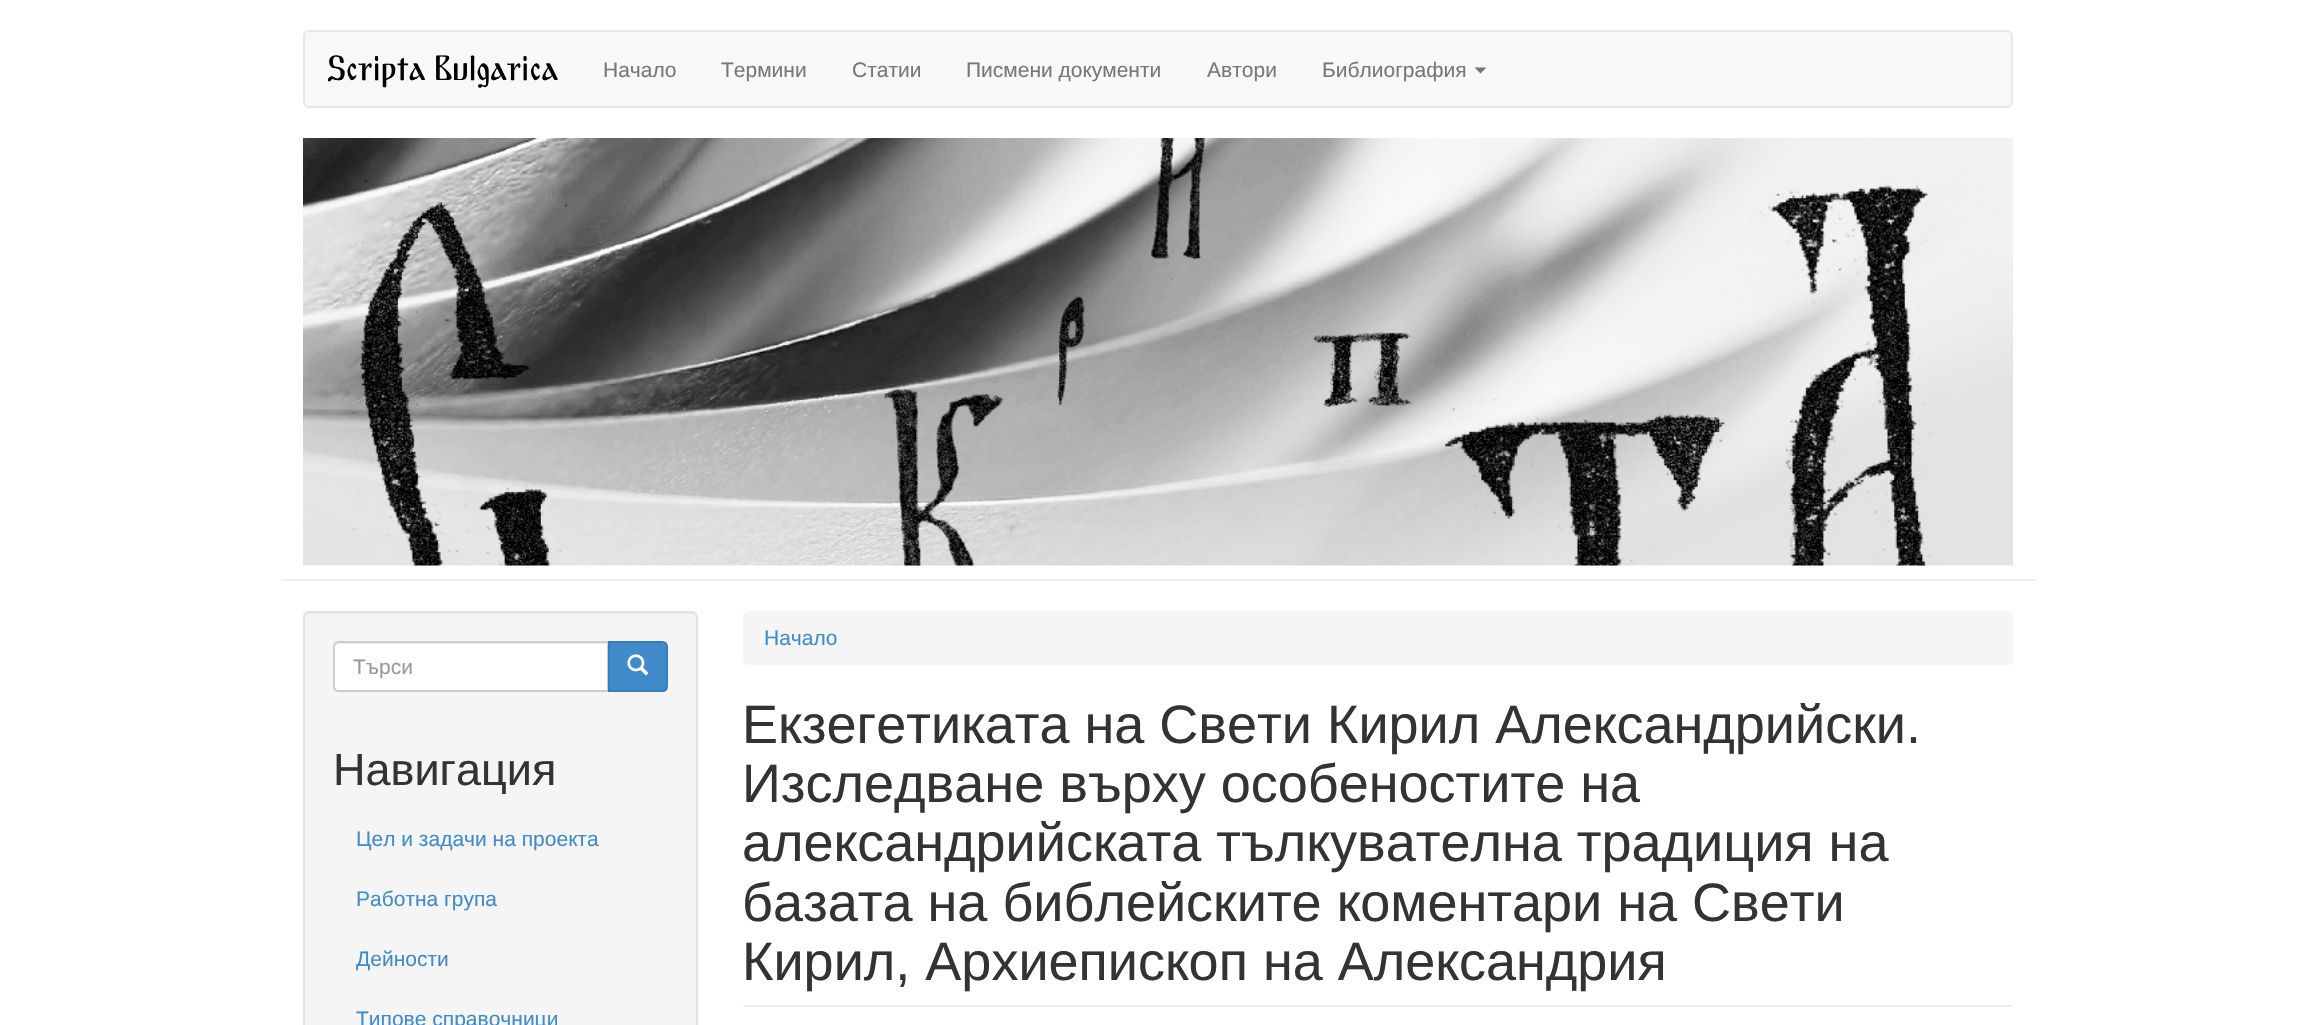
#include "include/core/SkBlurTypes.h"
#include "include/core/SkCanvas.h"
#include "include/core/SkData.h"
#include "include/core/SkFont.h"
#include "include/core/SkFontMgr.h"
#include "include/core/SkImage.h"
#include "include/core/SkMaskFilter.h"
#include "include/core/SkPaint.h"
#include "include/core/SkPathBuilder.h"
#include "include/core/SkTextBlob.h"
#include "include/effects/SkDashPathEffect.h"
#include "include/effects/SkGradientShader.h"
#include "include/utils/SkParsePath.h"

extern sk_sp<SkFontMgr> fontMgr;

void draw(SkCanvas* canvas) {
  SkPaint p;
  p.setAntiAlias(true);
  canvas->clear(SK_ColorWHITE);
  p.setColor(SkColorSetRGB(248, 248, 248));
  canvas->drawRoundRect(SkRect::MakeLTRB(304, 31, 2012, 107), 5, 5, p);
  p.setStyle(SkPaint::kStroke_Style);
  p.setStrokeWidth(2);
  p.setColor(SkColorSetRGB(231, 231, 231));
  canvas->drawRoundRect(SkRect::MakeLTRB(304, 31, 2012, 107), 5, 5, p);
  p.setStyle(SkPaint::kFill_Style);
  p.setColor(SkColorSetRGB(119, 119, 119));
  canvas->drawPath(SkPathBuilder().moveTo(1474.5f, 67.5f).lineTo(1486.5f, 67.5f).lineTo(1480.5f, 73.5f).close().detach(), p);
  p.setColor(SkColorSetRGB(238, 238, 238));
  canvas->drawRect(SkRect::MakeLTRB(281, 579, 2036, 581), p);
  canvas->drawImageRect(SkImages::DeferredFromEncodedData(SkData::MakeFromFileName("images/1.png")), SkRect::MakeLTRB(303, 138, 2013, 566), SkSamplingOptions());
  p.setColor(SkColorSetRGB(245, 245, 245));
  canvas->drawRoundRect(SkRect::MakeLTRB(303, 611, 698, 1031), 6, 6, p);
  p.setColor(SkColorSetRGB(233, 233, 233));
  canvas->drawPath(SkPathBuilder().moveTo(309, 614).lineTo(692, 614).cubicTo(694, 614, 696, 616, 696, 618).lineTo(696, 617).cubicTo(696, 614, 694, 612, 691, 612).lineTo(310, 612).cubicTo(308, 612, 306, 614, 305, 616).cubicTo(306, 615, 308, 614, 309, 614).close().detach(), p);
  p.setStyle(SkPaint::kStroke_Style);
  p.setColor(SkColorSetRGB(227, 227, 227));
  canvas->drawRoundRect(SkRect::MakeLTRB(304, 612, 697, 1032), 5, 5, p);
  p.setStyle(SkPaint::kFill_Style);
  p.setColor(SK_ColorWHITE);
  canvas->drawPath(SkPathBuilder().moveTo(339, 641).lineTo(609, 641).lineTo(609, 692).lineTo(339, 692).cubicTo(335.5f, 692, 333, 689.5f, 333, 686).lineTo(333, 647).cubicTo(333, 643.5f, 335.5f, 641, 339, 641).close().detach(), p);
  p.setColor(SkColorSetRGB(236, 236, 236));
  canvas->drawPath(SkPathBuilder().moveTo(339, 644).lineTo(608, 644).lineTo(608, 642).lineTo(340, 642).cubicTo(338, 642, 336, 644, 335, 646).cubicTo(336, 645, 338, 644, 339, 644).close().detach(), p);
  p.setStyle(SkPaint::kStroke_Style);
  p.setColor(SkColorSetRGB(204, 204, 204));
  canvas->drawPath(SkPathBuilder().moveTo(339, 642).lineTo(608, 642).lineTo(608, 691).lineTo(339, 691).cubicTo(336, 691, 334, 689, 334, 686).lineTo(334, 647).cubicTo(334, 644, 336, 642, 339, 642).close().detach(), p);
  p.setStyle(SkPaint::kFill_Style);
  p.setColor(SkColorSetRGB(66, 139, 202));
  canvas->drawPath(SkPathBuilder().moveTo(609, 642).lineTo(662, 642).cubicTo(665, 642, 667, 644, 667, 647).lineTo(667, 686).cubicTo(667, 689, 665, 691, 662, 691).lineTo(609, 691).close().detach(), p);
  p.setStyle(SkPaint::kStroke_Style);
  p.setColor(SkColorSetRGB(53, 126, 189));
  canvas->drawPath(SkPathBuilder().moveTo(609, 642).lineTo(662, 642).cubicTo(665, 642, 667, 644, 667, 647).lineTo(667, 686).cubicTo(667, 689, 665, 691, 662, 691).lineTo(609, 691).close().detach(), p);
  canvas->drawImageRect(SkImages::DeferredFromEncodedData(SkData::MakeFromFileName("images/2.png")), SkRect::MakeLTRB(627, 654, 649, 676), SkSamplingOptions());
  p.setStyle(SkPaint::kFill_Style);
  p.setColor(SkColorSetRGB(245, 245, 245));
  canvas->drawRoundRect(SkRect::MakeLTRB(743, 611, 2013, 665), 6, 6, p);
  p.setColor(SkColorSetRGB(238, 238, 238));
  canvas->drawRect(SkRect::MakeLTRB(743, 1005, 2013, 1007), p);
  SkFont font1(fontMgr->matchFamilyStyle("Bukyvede", SkFontStyle::Normal()), 36);
  font1.setSubpixel(true);
  p.setColor(SK_ColorBLACK);
  canvas->drawString("Scripta Bulgarica", 327, 80, font1, p);
  SkFont font2(fontMgr->matchFamilyStyle("Liberation Sans", SkFontStyle::Normal()), 21);
  font2.setSubpixel(true);
  p.setColor(SkColorSetRGB(119, 119, 119));
  canvas->drawString("Начало", 603, 77, font2, p);
  canvas->drawString("Термини", 721, 77, font2, p);
  canvas->drawString("Статии", 852, 77, font2, p);
  canvas->drawString("Писмени документи", 966, 77, font2, p);
  canvas->drawString("Автори", 1207, 77, font2, p);
  canvas->drawString("Библиография", 1322, 77, font2, p);
  p.setColor(SkColorSetRGB(153, 153, 153));
  canvas->drawString("Търси", 353, 674, font2, p);
  SkFont font3(fontMgr->matchFamilyStyle("Liberation Sans", SkFontStyle::Normal()), 45);
  font3.setSubpixel(true);
  p.setColor(SkColorSetRGB(51, 51, 51));
  canvas->drawString("Навигация", 333, 785, font3, p);
  p.setColor(SkColorSetRGB(66, 139, 202));
  canvas->drawString("Цел и задачи на проекта", 356, 846, font2, p);
  canvas->drawString("Работна група", 356, 906, font2, p);
  canvas->drawString("Дейности", 356, 966, font2, p);
  canvas->drawString("Типове справочници", 356, 1026, font2, p);
  canvas->drawString("Начало", 764, 645, font2, p);
  SkFont font4(fontMgr->matchFamilyStyle("Liberation Sans", SkFontStyle::Normal()), 54);
  font4.setSubpixel(true);
  p.setColor(SkColorSetRGB(51, 51, 51));
  canvas->drawString("Екзегетиката на Свети Кирил Александрийски.", 742, 743, font4, p);
  canvas->drawString("Изследване върху особеностите на", 742, 802, font4, p);
  canvas->drawString("александрийската тълкувателна традиция на", 742, 861, font4, p);
  canvas->drawString("базата на библейските коментари на Свети", 742, 921, font4, p);
  canvas->drawString("Кирил, Архиепископ на Александрия", 742, 980, font4, p);
}
